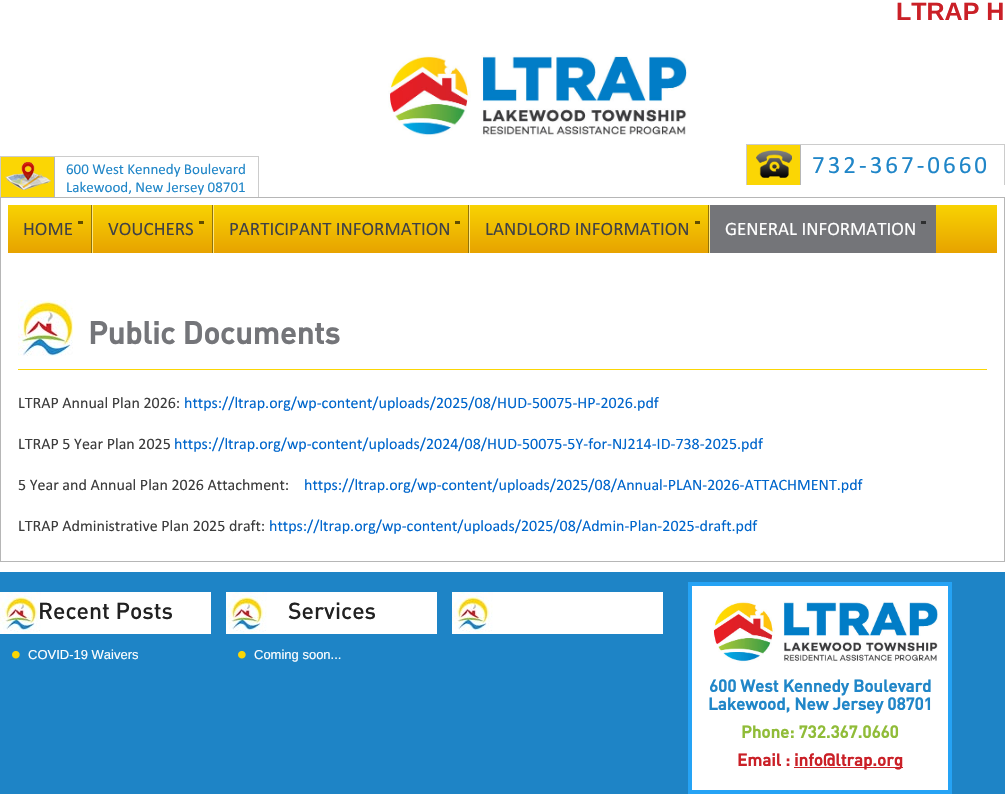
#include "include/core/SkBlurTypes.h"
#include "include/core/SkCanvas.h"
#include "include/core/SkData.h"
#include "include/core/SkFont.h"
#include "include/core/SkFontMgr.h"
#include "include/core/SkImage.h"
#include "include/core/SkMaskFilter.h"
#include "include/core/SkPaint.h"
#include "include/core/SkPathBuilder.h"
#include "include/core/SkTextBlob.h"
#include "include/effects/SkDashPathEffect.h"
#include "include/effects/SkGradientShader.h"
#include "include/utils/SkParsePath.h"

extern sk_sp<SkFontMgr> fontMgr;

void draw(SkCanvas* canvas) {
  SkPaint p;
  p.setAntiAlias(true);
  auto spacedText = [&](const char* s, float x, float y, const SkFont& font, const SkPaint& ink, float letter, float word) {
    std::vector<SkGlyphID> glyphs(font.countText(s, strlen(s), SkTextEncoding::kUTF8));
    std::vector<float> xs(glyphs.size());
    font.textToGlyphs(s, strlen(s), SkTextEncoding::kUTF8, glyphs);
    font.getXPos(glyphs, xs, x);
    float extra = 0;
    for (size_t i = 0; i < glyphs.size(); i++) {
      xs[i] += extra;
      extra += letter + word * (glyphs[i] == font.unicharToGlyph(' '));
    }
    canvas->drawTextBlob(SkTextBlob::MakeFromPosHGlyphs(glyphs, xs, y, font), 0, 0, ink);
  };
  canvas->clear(SK_ColorWHITE);
  canvas->drawImageRect(SkImages::DeferredFromEncodedData(SkData::MakeFromFileName("images/1.png")), SkRect::MakeLTRB(388, 55, 687, 137), SkSamplingOptions());
  p.setColor(SkColorSetRGB(204, 204, 204));
  canvas->drawRect(SkRect::MakeLTRB(0, 156, 259, 157), p);
  canvas->drawRect(SkRect::MakeLTRB(258, 156, 259, 197), p);
  canvas->drawRect(SkRect::MakeLTRB(0, 156, 1, 197), p);
  p.setColor(SkColorSetRGB(251, 214, 4));
  canvas->drawRect(SkRect::MakeLTRB(1, 157, 54, 197), p);
  p.setColor(SkColorSetRGB(182, 182, 182));
  canvas->drawRect(SkRect::MakeLTRB(54, 157, 55, 197), p);
  canvas->drawImageRect(SkImages::DeferredFromEncodedData(SkData::MakeFromFileName("images/2.png")), SkRect::MakeLTRB(5, 162, 51, 190), SkSamplingOptions());
  p.setColor(SkColorSetRGB(204, 204, 204));
  canvas->drawRect(SkRect::MakeLTRB(746, 144, 1005, 145), p);
  canvas->drawRect(SkRect::MakeLTRB(1004, 144, 1005, 185), p);
  canvas->drawRect(SkRect::MakeLTRB(746, 144, 747, 185), p);
  p.setColor(SkColorSetRGB(251, 214, 4));
  canvas->drawRect(SkRect::MakeLTRB(747, 145, 800, 185), p);
  p.setColor(SkColorSetRGB(182, 182, 182));
  canvas->drawRect(SkRect::MakeLTRB(800, 145, 801, 185), p);
  canvas->drawImageRect(SkImages::DeferredFromEncodedData(SkData::MakeFromFileName("images/3.png")), SkRect::MakeLTRB(756, 150, 792, 178), SkSamplingOptions());
  p.setStyle(SkPaint::kStroke_Style);
  p.setStrokeWidth(1);
  canvas->drawRect(SkRect::MakeLTRB(0.5f, 197.5f, 1004.5f, 561.5f), p);
  p.setStyle(SkPaint::kFill_Style);
  {
    const SkColor colors[] = {SkColorSetRGB(248, 210, 2), SkColorSetRGB(231, 163, 0)};
    const float stops[] = {0, 1};
    const SkPoint ends[] = {{503, 205}, {503, 253}};
    p.setShader(SkGradientShader::MakeLinear(ends, colors, stops, 2, SkTileMode::kClamp));
    p.setAlpha(255);
  }
  canvas->drawRect(SkRect::MakeLTRB(8, 205, 997, 253), p);
  canvas->drawImageRect(SkImages::DeferredFromEncodedData(SkData::MakeFromFileName("images/4.png")), SkRect::MakeLTRB(91, 205, 93, 253), SkSamplingOptions());
  p.setShader(nullptr);
  p.setColor(SkColorSetRGB(97, 77, 0));
  canvas->drawRect(SkRect::MakeLTRB(78, 221, 83, 224), p);
  canvas->drawImageRect(SkImages::DeferredFromEncodedData(SkData::MakeFromFileName("images/4.png")), SkRect::MakeLTRB(212, 205, 214, 253), SkSamplingOptions());
  canvas->drawRect(SkRect::MakeLTRB(199, 221, 204, 224), p);
  canvas->drawImageRect(SkImages::DeferredFromEncodedData(SkData::MakeFromFileName("images/4.png")), SkRect::MakeLTRB(468, 205, 470, 253), SkSamplingOptions());
  canvas->drawRect(SkRect::MakeLTRB(455, 221, 460, 224), p);
  canvas->drawImageRect(SkImages::DeferredFromEncodedData(SkData::MakeFromFileName("images/4.png")), SkRect::MakeLTRB(708, 205, 710, 253), SkSamplingOptions());
  canvas->drawRect(SkRect::MakeLTRB(695, 221, 700, 224), p);
  p.setColor(SkColorSetRGB(116, 117, 121));
  canvas->drawRect(SkRect::MakeLTRB(710, 205, 936, 253), p);
  p.setColor(SkColorSetRGB(46, 47, 48));
  canvas->drawRect(SkRect::MakeLTRB(921, 221, 926, 224), p);
  canvas->drawImageRect(SkImages::DeferredFromEncodedData(SkData::MakeFromFileName("images/5.png")), SkRect::MakeLTRB(18, 300, 73, 356), SkSamplingOptions());
  p.setColor(SkColorSetRGB(251, 214, 5));
  canvas->drawRect(SkRect::MakeLTRB(18, 369, 987, 370), p);
  p.setColor(SkColorSetRGB(30, 132, 198));
  canvas->drawRect(SkRect::MakeLTRB(0, 572, 1005, 794), p);
  p.setColor(SK_ColorWHITE);
  canvas->drawRect(SkRect::MakeLTRB(41, 592, 211, 634), p);
  canvas->drawImageRect(SkImages::DeferredFromEncodedData(SkData::MakeFromFileName("images/6.png")), SkRect::MakeLTRB(0, 592, 41, 634), SkSamplingOptions());
  canvas->drawImageRect(SkImages::DeferredFromEncodedData(SkData::MakeFromFileName("images/7.png")), SkRect::MakeLTRB(12, 650, 20, 659), SkSamplingOptions());
  canvas->drawRect(SkRect::MakeLTRB(267, 592, 437, 634), p);
  canvas->drawImageRect(SkImages::DeferredFromEncodedData(SkData::MakeFromFileName("images/6.png")), SkRect::MakeLTRB(226, 592, 267, 634), SkSamplingOptions());
  canvas->drawImageRect(SkImages::DeferredFromEncodedData(SkData::MakeFromFileName("images/7.png")), SkRect::MakeLTRB(238, 650, 246, 659), SkSamplingOptions());
  canvas->drawRect(SkRect::MakeLTRB(493, 592, 663, 634), p);
  canvas->drawImageRect(SkImages::DeferredFromEncodedData(SkData::MakeFromFileName("images/6.png")), SkRect::MakeLTRB(452, 592, 493, 634), SkSamplingOptions());
  canvas->drawRect(SkRect::MakeLTRB(690, 584, 950, 792), p);
  p.setStyle(SkPaint::kStroke_Style);
  p.setStrokeWidth(4);
  p.setColor(SkColorSetRGB(37, 163, 245));
  canvas->drawRect(SkRect::MakeLTRB(690, 584, 950, 792), p);
  canvas->drawImageRect(SkImages::DeferredFromEncodedData(SkData::MakeFromFileName("images/8.png")), SkRect::MakeLTRB(713, 601, 938, 663), SkSamplingOptions());
  p.setStyle(SkPaint::kFill_Style);
  p.setColor(SkColorSetRGB(202, 32, 39));
  canvas->drawRect(SkRect::MakeLTRB(794, 767, 903, 768), p);
  SkFont font1(fontMgr->matchFamilyStyle("Liberation Sans", SkFontStyle::Bold()), 25);
  font1.setSubpixel(true);
  canvas->drawString("LTRAP H", 896, 20, font1, p);
  SkFont font2(fontMgr->matchFamilyStyle("Calibri", SkFontStyle::Normal()), 15);
  font2.setSubpixel(true);
  p.setColor(SkColorSetRGB(32, 134, 200));
  canvas->drawString("600 West Kennedy Boulevard", 66, 174, font2, p);
  canvas->drawString("Lakewood, New Jersey 08701", 66, 192, font2, p);
  SkFont font3(fontMgr->matchFamilyStyle("Calibri", SkFontStyle::Normal()), 25);
  font3.setSubpixel(true);
  spacedText("732-367-0660", 812, 173, font3, p, 3, 0);
  SkFont font4(fontMgr->matchFamilyStyle("Calibri", SkFontStyle::Normal()), 19);
  font4.setSubpixel(true);
  p.setColor(SkColorSetRGB(64, 65, 69));
  canvas->drawString("HOME", 23, 235, font4, p);
  canvas->drawString("VOUCHERS", 108, 235, font4, p);
  canvas->drawString("PARTICIPANT INFORMATION", 229, 235, font4, p);
  canvas->drawString("LANDLORD INFORMATION", 485, 235, font4, p);
  p.setColor(SK_ColorWHITE);
  canvas->drawString("GENERAL INFORMATION", 725, 235, font4, p);
  SkFont font5(fontMgr->matchFamilyStyle("DIN", SkFontStyle::Bold()), 31);
  font5.setSubpixel(true);
  p.setColor(SkColorSetRGB(116, 117, 121));
  canvas->drawString("Public Documents", 88, 344, font5, p);
  SkFont font6(fontMgr->matchFamilyStyle("Calibri", SkFontStyle::Normal()), 16);
  font6.setSubpixel(true);
  p.setColor(SkColorSetRGB(61, 61, 61));
  canvas->drawString("LTRAP Annual Plan 2026:", 18, 408, font6, p);
  p.setColor(SkColorSetRGB(0, 102, 204));
  canvas->drawString("https://ltrap.org/wp-content/uploads/2025/08/HUD-50075-HP-2026.pdf", 184, 408, font6, p);
  p.setColor(SkColorSetRGB(61, 61, 61));
  canvas->drawString("LTRAP 5 Year Plan 2025", 18, 449, font6, p);
  p.setColor(SkColorSetRGB(0, 102, 204));
  canvas->drawString("https://ltrap.org/wp-content/uploads/2024/08/HUD-50075-5Y-for-NJ214-ID-738-2025.pdf", 174, 449, font6, p);
  p.setColor(SkColorSetRGB(61, 61, 61));
  canvas->drawString("5 Year and Annual Plan 2026 Attachment:", 18, 490, font6, p);
  p.setColor(SkColorSetRGB(0, 102, 204));
  canvas->drawString("https://ltrap.org/wp-content/uploads/2025/08/Annual-PLAN-2026-ATTACHMENT.pdf", 304, 490, font6, p);
  p.setColor(SkColorSetRGB(61, 61, 61));
  canvas->drawString("LTRAP Administrative Plan 2025 draft:", 18, 531, font6, p);
  p.setColor(SkColorSetRGB(0, 102, 204));
  canvas->drawString("https://ltrap.org/wp-content/uploads/2025/08/Admin-Plan-2025-draft.pdf", 269, 531, font6, p);
  SkFont font7(fontMgr->matchFamilyStyle("DIN", SkFontStyle(500, SkFontStyle::kNormal_Width, SkFontStyle::kUpright_Slant)), 23);
  font7.setSubpixel(true);
  p.setColor(SkColorSetRGB(33, 33, 33));
  canvas->drawString("Recent Posts", 38, 619, font7, p);
  SkFont font8(fontMgr->matchFamilyStyle("Liberation Sans", SkFontStyle::Normal()), 13);
  font8.setSubpixel(true);
  p.setColor(SK_ColorWHITE);
  canvas->drawString("COVID-19 Waivers", 28, 659, font8, p);
  p.setColor(SkColorSetRGB(33, 33, 33));
  canvas->drawString("Services", 288, 619, font7, p);
  p.setColor(SK_ColorWHITE);
  canvas->drawString("Coming soon...", 254, 659, font8, p);
  SkFont font9(fontMgr->matchFamilyStyle("DIN", SkFontStyle::Bold()), 17);
  font9.setSubpixel(true);
  p.setColor(SkColorSetRGB(32, 134, 200));
  canvas->drawString("600 West Kennedy Boulevard", 709, 692, font9, p);
  canvas->drawString("Lakewood, New Jersey 08701", 708, 710, font9, p);
  p.setColor(SkColorSetRGB(144, 188, 56));
  canvas->drawString("Phone: 732.367.0660", 741, 738, font9, p);
  p.setColor(SkColorSetRGB(202, 32, 39));
  canvas->drawString("Email :", 737, 766, font9, p);
  canvas->drawString("info@ltrap.org", 794, 766, font9, p);
}
